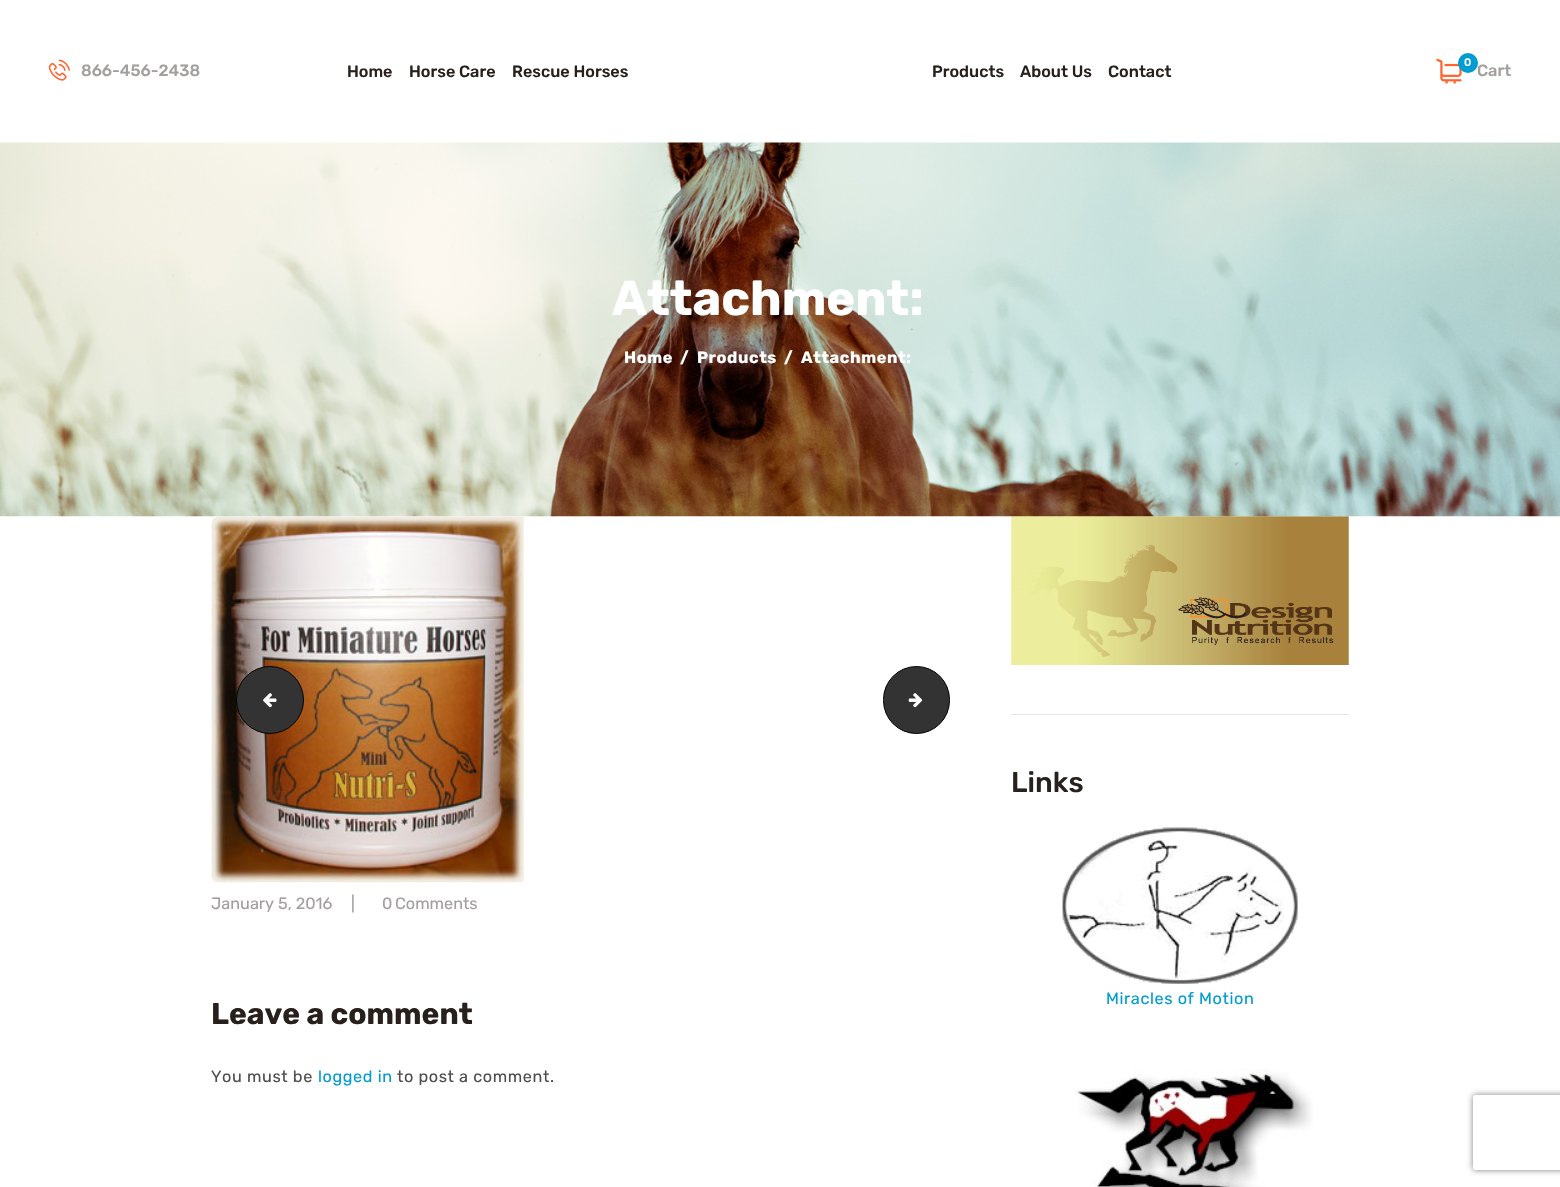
#include "include/core/SkBlurTypes.h"
#include "include/core/SkCanvas.h"
#include "include/core/SkData.h"
#include "include/core/SkFont.h"
#include "include/core/SkFontMgr.h"
#include "include/core/SkImage.h"
#include "include/core/SkMaskFilter.h"
#include "include/core/SkPaint.h"
#include "include/core/SkPathBuilder.h"
#include "include/core/SkTextBlob.h"
#include "include/effects/SkDashPathEffect.h"
#include "include/effects/SkGradientShader.h"
#include "include/utils/SkParsePath.h"

extern sk_sp<SkFontMgr> fontMgr;

void draw(SkCanvas* canvas) {
  SkPaint p;
  p.setAntiAlias(true);
  auto spacedText = [&](const char* s, float x, float y, const SkFont& font, const SkPaint& ink, float letter, float word) {
    std::vector<SkGlyphID> glyphs(font.countText(s, strlen(s), SkTextEncoding::kUTF8));
    std::vector<float> xs(glyphs.size());
    font.textToGlyphs(s, strlen(s), SkTextEncoding::kUTF8, glyphs);
    font.getXPos(glyphs, xs, x);
    float extra = 0;
    for (size_t i = 0; i < glyphs.size(); i++) {
      xs[i] += extra;
      extra += letter + word * (glyphs[i] == font.unicharToGlyph(' '));
    }
    canvas->drawTextBlob(SkTextBlob::MakeFromPosHGlyphs(glyphs, xs, y, font), 0, 0, ink);
  };
  canvas->clear(SK_ColorWHITE);
  canvas->drawImageRect(SkImages::DeferredFromEncodedData(SkData::MakeFromFileName("images/1.png")), SkRect::MakeLTRB(48, 59, 70, 81), SkSamplingOptions());
  canvas->drawImageRect(SkImages::DeferredFromEncodedData(SkData::MakeFromFileName("images/2.png")), SkRect::MakeLTRB(1436, 58, 1462, 84), SkSamplingOptions());
  canvas->drawImageRect(SkImages::DeferredFromEncodedData(SkData::MakeFromFileName("images/4.png")), SkRect::MakeLTRB(211, 516, 524, 883), SkSamplingOptions());
  canvas->drawImageRect(SkImages::DeferredFromEncodedData(SkData::MakeFromFileName("images/7.png")), SkRect::MakeLTRB(1011, 516, 1349, 665), SkSamplingOptions());
  canvas->drawImageRect(SkImages::DeferredFromEncodedData(SkData::MakeFromFileName("images/3.png")), SkRect::MakeLTRB(0, 142, 1560, 517), SkSamplingOptions());
  p.setColor(SkColorSetRGB(51, 51, 51));
  canvas->drawCircle(270, 700, 33.5f, p);
  p.setStyle(SkPaint::kStroke_Style);
  p.setStrokeWidth(1);
  p.setColor(SK_ColorBLACK);
  canvas->drawCircle(270, 700, 33.5f, p);
  canvas->drawImageRect(SkImages::DeferredFromEncodedData(SkData::MakeFromFileName("images/5.png")), SkRect::MakeLTRB(263, 693, 277, 708), SkSamplingOptions());
  p.setStyle(SkPaint::kFill_Style);
  p.setColor(SkColorSetRGB(51, 51, 51));
  canvas->drawRoundRect(SkRect::MakeLTRB(883.5f, 666.5f, 949.5f, 733.5f), 33, 33, p);
  p.setStyle(SkPaint::kStroke_Style);
  p.setColor(SK_ColorBLACK);
  canvas->drawRoundRect(SkRect::MakeLTRB(883.5f, 666.5f, 949.5f, 733.5f), 33, 33, p);
  canvas->drawImageRect(SkImages::DeferredFromEncodedData(SkData::MakeFromFileName("images/6.png")), SkRect::MakeLTRB(908, 693, 923, 708), SkSamplingOptions());
  p.setStyle(SkPaint::kFill_Style);
  p.setColor(SkColorSetRGB(229, 229, 229));
  canvas->drawRect(SkRect::MakeLTRB(1011, 714, 1349, 715), p);
  canvas->drawImageRect(SkImages::DeferredFromEncodedData(SkData::MakeFromFileName("images/8.png")), SkRect::MakeLTRB(1062, 827, 1298, 984), SkSamplingOptions());
  canvas->drawImageRect(SkImages::DeferredFromEncodedData(SkData::MakeFromFileName("images/9.png")), SkRect::MakeLTRB(1074, 1069, 1313, 1187), SkSamplingOptions());
  canvas->save();
  canvas->clipPath(SkPathBuilder(SkPathFillType::kEvenOdd).moveTo(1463, 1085).lineTo(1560, 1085).lineTo(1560, 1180).lineTo(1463, 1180).close().moveTo(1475.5f, 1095).lineTo(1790.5f, 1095).cubicTo(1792, 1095, 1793, 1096, 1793, 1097.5f).lineTo(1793, 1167.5f).cubicTo(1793, 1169, 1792, 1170, 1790.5f, 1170).lineTo(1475.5f, 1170).cubicTo(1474, 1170, 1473, 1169, 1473, 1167.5f).lineTo(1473, 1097.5f).cubicTo(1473, 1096, 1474, 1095, 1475.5f, 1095).close().detach(), true);
  p.setColor(SkColorSetRGB(128, 128, 128));
  p.setMaskFilter(SkMaskFilter::MakeBlur(kNormal_SkBlurStyle, 3));
  canvas->drawRoundRect(SkRect::MakeLTRB(1473, 1095, 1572, 1170), 2.5f, 2.5f, p);
  p.setMaskFilter(nullptr);
  canvas->restore();
  SkFont font1(fontMgr->matchFamilyStyle("Rubik", SkFontStyle(500, SkFontStyle::kNormal_Width, SkFontStyle::kUpright_Slant)), 16.25f);
  font1.setSubpixel(true);
  p.setColor(SkColorSetRGB(162, 159, 158));
  canvas->drawString("866-456-2438", 81, 76, font1, p);
  p.setColor(SkColorSetRGB(40, 32, 29));
  canvas->drawString("Home", 347, 77, font1, p);
  canvas->drawString("Horse Care", 409, 77, font1, p);
  canvas->drawString("Rescue Horses", 512, 77, font1, p);
  canvas->drawString("Products", 932, 77, font1, p);
  canvas->drawString("About Us", 1020, 77, font1, p);
  canvas->drawString("Contact", 1108, 77, font1, p);
  p.setColor(SkColorSetRGB(162, 159, 158));
  canvas->drawString("Cart", 1477, 76, font1, p);
  p.setColor(SkColorSetRGB(1, 156, 210));
  canvas->drawCircle(1468, 63, 10, p);
  SkFont font2(fontMgr->matchFamilyStyle("Rubik", SkFontStyle(500, SkFontStyle::kNormal_Width, SkFontStyle::kUpright_Slant)), 11);
  font2.setSubpixel(true);
  p.setColor(SK_ColorWHITE);
  canvas->drawString("0", 1464, 66, font2, p);
  SkFont font3(fontMgr->matchFamilyStyle("Rubik", SkFontStyle::Bold()), 48.75f);
  font3.setSubpixel(true);
  canvas->drawString("Attachment:", 612, 315, font3, p);
  SkFont font4(fontMgr->matchFamilyStyle("Rubik", SkFontStyle::Bold()), 16.25f);
  font4.setSubpixel(true);
  spacedText("Home", 624, 363, font4, p, 0.6f, 0);
  spacedText("/", 680, 363, font4, p, 0.6f, 0);
  spacedText("Products", 697, 363, font4, p, 0.6f, 0);
  spacedText("/", 784, 363, font4, p, 0.6f, 0);
  spacedText("Attachment:", 801, 363, font4, p, 0.6f, 0);
  SkFont font5(fontMgr->matchFamilyStyle("Rubik", SkFontStyle::Normal()), 16.25f);
  font5.setSubpixel(true);
  p.setColor(SkColorSetRGB(162, 159, 158));
  canvas->drawString("January 5, 2016", 211, 909, font5, p);
  canvas->drawString("|", 351, 909, font5, p);
  canvas->drawString("0", 382, 909, font5, p);
  canvas->drawString("Comments", 395, 909, font5, p);
  SkFont font6(fontMgr->matchFamilyStyle("Rubik", SkFontStyle::Bold()), 30);
  font6.setSubpixel(true);
  p.setColor(SkColorSetRGB(40, 32, 29));
  canvas->drawString("Leave a comment", 211, 1024, font6, p);
  p.setColor(SkColorSetRGB(80, 77, 77));
  spacedText("You must be", 211, 1082, font5, p, 0.6f, 0);
  p.setColor(SkColorSetRGB(1, 156, 210));
  spacedText("logged in", 318, 1082, font5, p, 0.6f, 0);
  p.setColor(SkColorSetRGB(80, 77, 77));
  spacedText("to post a comment.", 397, 1082, font5, p, 0.6f, 0);
  SkFont font7(fontMgr->matchFamilyStyle("Rubik", SkFontStyle(500, SkFontStyle::kNormal_Width, SkFontStyle::kUpright_Slant)), 28.5f);
  font7.setSubpixel(true);
  p.setColor(SkColorSetRGB(40, 32, 29));
  canvas->drawString("Links", 1011, 792, font7, p);
  p.setColor(SkColorSetRGB(1, 156, 210));
  spacedText("Miracles of Motion", 1106, 1004, font5, p, 0.6f, 0);
}
